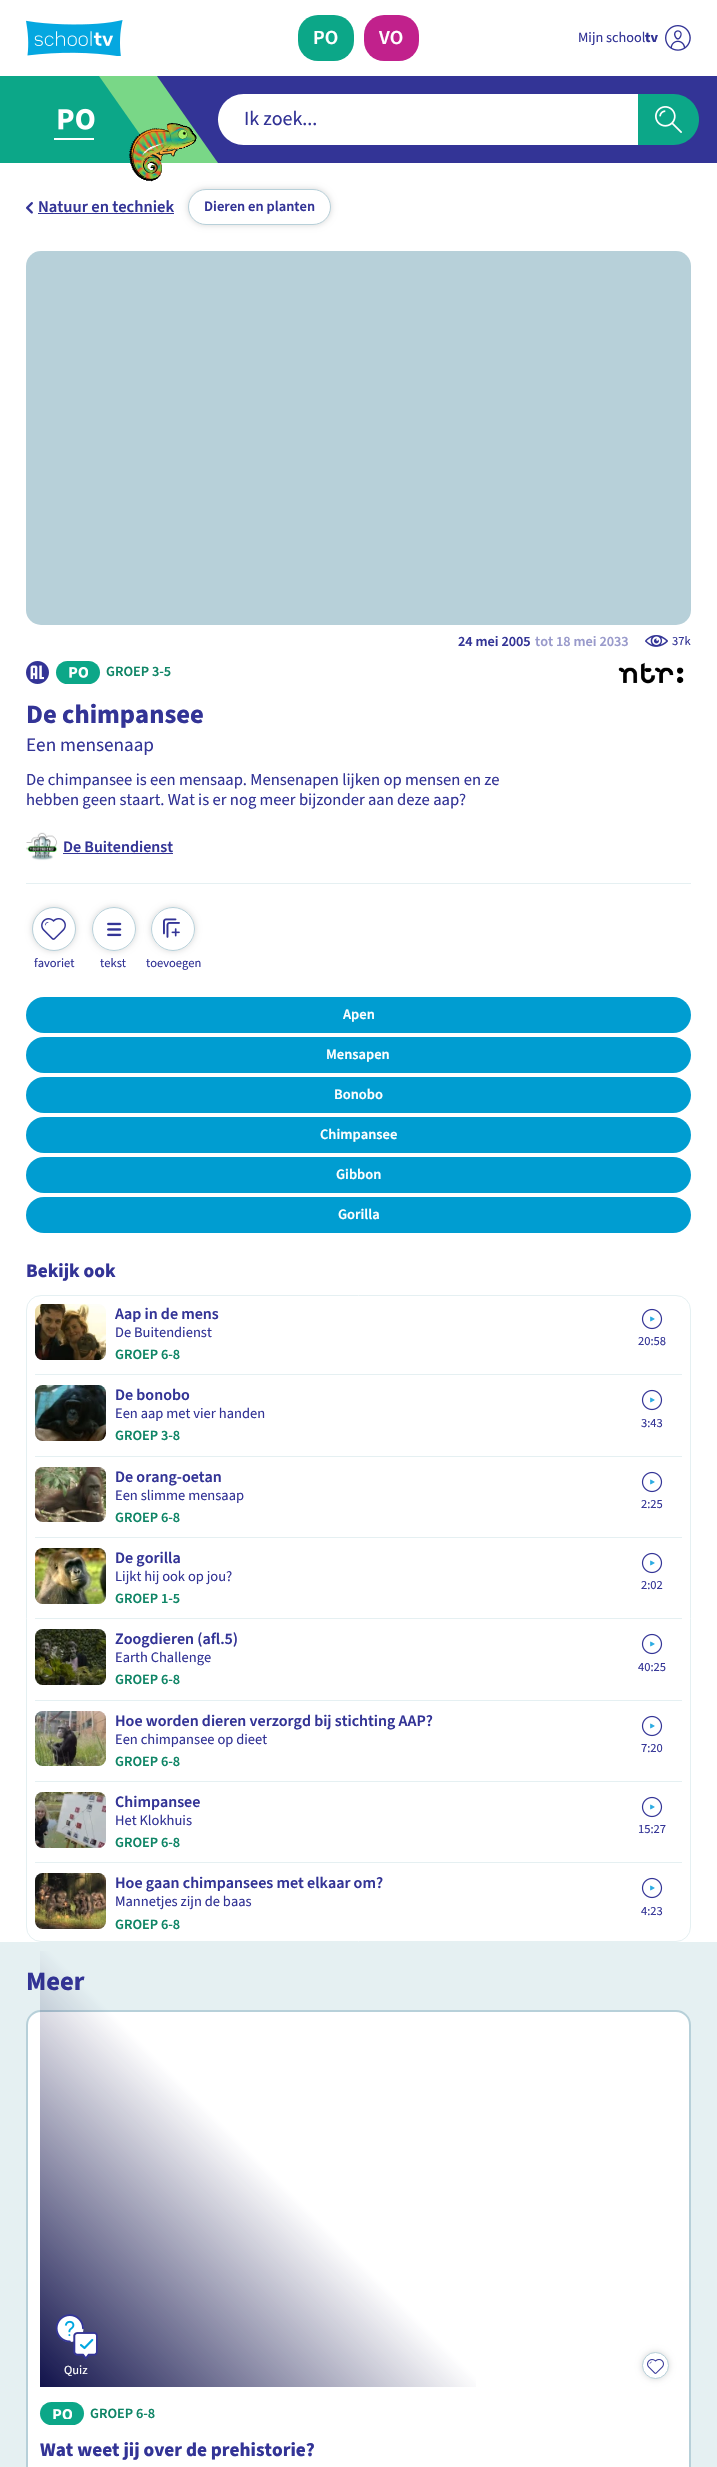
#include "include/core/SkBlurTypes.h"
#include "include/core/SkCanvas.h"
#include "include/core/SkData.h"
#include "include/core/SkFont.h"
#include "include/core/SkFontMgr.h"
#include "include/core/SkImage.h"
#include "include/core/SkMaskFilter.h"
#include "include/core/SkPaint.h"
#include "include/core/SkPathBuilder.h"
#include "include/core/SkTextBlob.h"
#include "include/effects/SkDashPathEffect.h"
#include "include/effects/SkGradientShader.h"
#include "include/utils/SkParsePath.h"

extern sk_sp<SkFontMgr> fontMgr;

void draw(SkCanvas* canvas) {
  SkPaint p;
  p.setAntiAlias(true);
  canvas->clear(SK_ColorWHITE);
  canvas->drawImageRect(SkImages::DeferredFromEncodedData(SkData::MakeFromFileName("images/1.png")), SkRect::MakeLTRB(26, 20, 123, 56), SkSamplingOptions());
  p.setColor(SkColorSetRGB(12, 167, 136));
  canvas->drawRoundRect(SkRect::MakeLTRB(298, 15, 354, 61), 20, 20, p);
  p.setColor(SkColorSetRGB(193, 33, 140));
  canvas->drawRoundRect(SkRect::MakeLTRB(364, 15, 419, 61), 20, 20, p);
  canvas->drawImageRect(SkImages::DeferredFromEncodedData(SkData::MakeFromFileName("images/2.png")), SkRect::MakeLTRB(665, 25, 691, 51), SkSamplingOptions());
  p.setColor(SkColorSetRGB(51, 52, 150));
  canvas->drawRect(SkRect::MakeLTRB(155, 76, 717, 163), p);
  p.setColor(SkColorSetRGB(12, 167, 136));
  canvas->drawRect(SkRect::MakeLTRB(0, 76, 155, 163), p);
  canvas->drawImageRect(SkImages::DeferredFromEncodedData(SkData::MakeFromFileName("images/3.png")), SkRect::MakeLTRB(58, 108, 95, 130), SkSamplingOptions());
  p.setColor(SK_ColorWHITE);
  canvas->drawRect(SkRect::MakeLTRB(54, 138, 94, 140), p);
  p.setColor(SkColorSetRGB(121, 215, 135));
  canvas->drawPath(SkPathBuilder().moveTo(99, 76).lineTo(157, 76).lineTo(218, 163).lineTo(160, 163).close().detach(), p);
  p.setColor(SkColorSetARGB(41, 0, 0, 0));
  p.setMaskFilter(SkMaskFilter::MakeBlur(kNormal_SkBlurStyle, 3));
  canvas->drawRoundRect(SkRect::MakeLTRB(188, 189, 331, 225), 18, 18, p);
  p.setMaskFilter(nullptr);
  canvas->drawImageRect(SkImages::DeferredFromEncodedData(SkData::MakeFromFileName("images/4.png")), SkRect::MakeLTRB(128, 122, 197, 182), SkSamplingOptions());
  p.setColor(SK_ColorWHITE);
  canvas->drawPath(SkPathBuilder().moveTo(243.5f, 94).lineTo(638, 94).lineTo(638, 145).lineTo(243.5f, 145).cubicTo(229.5f, 145, 218, 133.5f, 218, 119.5f).cubicTo(218, 105.5f, 229.5f, 94, 243.5f, 94).close().detach(), p);
  p.setColor(SkColorSetRGB(12, 167, 136));
  canvas->drawPath(SkPathBuilder().moveTo(638, 94).lineTo(673.5f, 94).cubicTo(687.5f, 94, 699, 105.5f, 699, 119.5f).cubicTo(699, 133.5f, 687.5f, 145, 673.5f, 145).lineTo(638, 145).close().detach(), p);
  canvas->drawImageRect(SkImages::DeferredFromEncodedData(SkData::MakeFromFileName("images/5.png")), SkRect::MakeLTRB(655, 106, 682, 133), SkSamplingOptions());
  canvas->drawImageRect(SkImages::DeferredFromEncodedData(SkData::MakeFromFileName("images/6.png")), SkRect::MakeLTRB(26, 202, 33, 214), SkSamplingOptions());
  p.setColor(SkColorSetRGB(51, 52, 150));
  canvas->drawRect(SkRect::MakeLTRB(38, 213, 174, 214), p);
  p.setColor(SK_ColorWHITE);
  canvas->drawRoundRect(SkRect::MakeLTRB(188.5f, 189.5f, 330.5f, 224.5f), 17.5f, 17.5f, p);
  p.setStyle(SkPaint::kStroke_Style);
  p.setStrokeWidth(1);
  p.setColor(SkColorSetRGB(183, 208, 217));
  canvas->drawRoundRect(SkRect::MakeLTRB(188.5f, 189.5f, 330.5f, 224.5f), 17.5f, 17.5f, p);
  p.setStyle(SkPaint::kFill_Style);
  canvas->drawRoundRect(SkRect::MakeLTRB(26, 251, 691, 625), 15, 15, p);
  canvas->drawImageRect(SkImages::DeferredFromEncodedData(SkData::MakeFromFileName("images/7.png")), SkRect::MakeLTRB(645, 635, 668, 647), SkSamplingOptions());
  p.setColor(SkColorSetRGB(229, 240, 242));
  canvas->drawRect(SkRect::MakeLTRB(26, 883, 691, 884), p);
  canvas->drawImageRect(SkImages::DeferredFromEncodedData(SkData::MakeFromFileName("images/8.png")), SkRect::MakeLTRB(26, 661, 49, 684), SkSamplingOptions());
  p.setColor(SkColorSetRGB(12, 167, 136));
  canvas->drawRoundRect(SkRect::MakeLTRB(56, 661, 100, 684), 11.5f, 11.5f, p);
  canvas->drawImageRect(SkImages::DeferredFromEncodedData(SkData::MakeFromFileName("images/9.png")), SkRect::MakeLTRB(69, 667, 88, 678), SkSamplingOptions());
  canvas->drawImageRect(SkImages::DeferredFromEncodedData(SkData::MakeFromFileName("images/10.png")), SkRect::MakeLTRB(618, 662, 684, 684), SkSamplingOptions());
  canvas->drawImageRect(SkImages::DeferredFromEncodedData(SkData::MakeFromFileName("images/11.png")), SkRect::MakeLTRB(26, 831, 58, 863), SkSamplingOptions());
  p.setColor(SkColorSetRGB(51, 52, 150));
  canvas->drawRect(SkRect::MakeLTRB(63, 853, 173, 854), p);
  p.setColor(SkColorSetARGB(41, 0, 0, 0));
  p.setMaskFilter(SkMaskFilter::MakeBlur(kNormal_SkBlurStyle, 3));
  canvas->drawRoundRect(SkRect::MakeLTRB(32, 907, 76, 951), 22, 22, p);
  p.setMaskFilter(nullptr);
  p.setColor(SK_ColorWHITE);
  canvas->drawCircle(54, 929, 21.5f, p);
  p.setStyle(SkPaint::kStroke_Style);
  p.setColor(SkColorSetRGB(183, 208, 217));
  canvas->drawCircle(54, 929, 21.5f, p);
  canvas->drawImageRect(SkImages::DeferredFromEncodedData(SkData::MakeFromFileName("images/12.png")), SkRect::MakeLTRB(41, 918, 66, 940), SkSamplingOptions());
  canvas->save();
  canvas->clipPath(SkPathBuilder(SkPathFillType::kEvenOdd).moveTo(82, 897).lineTo(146, 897).lineTo(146, 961).lineTo(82, 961).close().moveTo(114, 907).cubicTo(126, 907, 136, 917, 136, 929).cubicTo(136, 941, 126, 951, 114, 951).cubicTo(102, 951, 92, 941, 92, 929).cubicTo(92, 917, 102, 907, 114, 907).close().detach(), true);
  p.setStyle(SkPaint::kFill_Style);
  p.setColor(SkColorSetARGB(41, 0, 0, 0));
  p.setMaskFilter(SkMaskFilter::MakeBlur(kNormal_SkBlurStyle, 3));
  canvas->drawRoundRect(SkRect::MakeLTRB(92, 907, 136, 951), 22, 22, p);
  p.setMaskFilter(nullptr);
  canvas->restore();
  p.setStyle(SkPaint::kStroke_Style);
  p.setColor(SkColorSetRGB(183, 208, 217));
  canvas->drawCircle(114, 929, 21.5f, p);
  canvas->drawImageRect(SkImages::DeferredFromEncodedData(SkData::MakeFromFileName("images/13.png")), SkRect::MakeLTRB(107, 922, 122, 937), SkSamplingOptions());
  canvas->save();
  canvas->clipPath(SkPathBuilder(SkPathFillType::kEvenOdd).moveTo(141, 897).lineTo(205, 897).lineTo(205, 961).lineTo(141, 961).close().moveTo(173, 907).cubicTo(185, 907, 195, 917, 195, 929).cubicTo(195, 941, 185, 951, 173, 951).cubicTo(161, 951, 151, 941, 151, 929).cubicTo(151, 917, 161, 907, 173, 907).close().detach(), true);
  p.setStyle(SkPaint::kFill_Style);
  p.setColor(SkColorSetARGB(41, 0, 0, 0));
  p.setMaskFilter(SkMaskFilter::MakeBlur(kNormal_SkBlurStyle, 3));
  canvas->drawRoundRect(SkRect::MakeLTRB(151, 907, 195, 951), 22, 22, p);
  p.setMaskFilter(nullptr);
  canvas->restore();
  p.setStyle(SkPaint::kStroke_Style);
  p.setColor(SkColorSetRGB(183, 208, 217));
  canvas->drawCircle(173, 929, 21.5f, p);
  canvas->drawImageRect(SkImages::DeferredFromEncodedData(SkData::MakeFromFileName("images/14.png")), SkRect::MakeLTRB(163, 918, 180, 938), SkSamplingOptions());
  p.setStyle(SkPaint::kFill_Style);
  p.setColor(SkColorSetRGB(0, 157, 209));
  canvas->drawRoundRect(SkRect::MakeLTRB(26, 997, 691, 1033), 18, 18, p);
  canvas->drawRoundRect(SkRect::MakeLTRB(26, 1037, 691, 1073), 18, 18, p);
  canvas->drawRoundRect(SkRect::MakeLTRB(26, 1077, 691, 1113), 18, 18, p);
  canvas->drawRoundRect(SkRect::MakeLTRB(26, 1117, 691, 1153), 18, 18, p);
  canvas->drawRoundRect(SkRect::MakeLTRB(26, 1157, 691, 1193), 18, 18, p);
  canvas->drawRoundRect(SkRect::MakeLTRB(26, 1197, 691, 1233), 18, 18, p);
  p.setStyle(SkPaint::kStroke_Style);
  p.setColor(SkColorSetRGB(229, 240, 242));
  canvas->drawRoundRect(SkRect::MakeLTRB(26.5f, 1295.5f, 690.5f, 1941.5f), 14.5f, 14.5f, p);
  p.setStyle(SkPaint::kFill_Style);
  canvas->drawRect(SkRect::MakeLTRB(35, 1374, 682, 1375), p);
  canvas->drawImageRect(SkImages::DeferredFromEncodedData(SkData::MakeFromFileName("images/15.png")), SkRect::MakeLTRB(35, 1304, 106, 1360), SkSamplingOptions());
  canvas->drawImageRect(SkImages::DeferredFromEncodedData(SkData::MakeFromFileName("images/16.png")), SkRect::MakeLTRB(641, 1308, 663, 1330), SkSamplingOptions());
  canvas->drawRect(SkRect::MakeLTRB(35, 1456, 682, 1457), p);
  canvas->drawImageRect(SkImages::DeferredFromEncodedData(SkData::MakeFromFileName("images/17.png")), SkRect::MakeLTRB(35, 1385, 106, 1441), SkSamplingOptions());
  canvas->drawImageRect(SkImages::DeferredFromEncodedData(SkData::MakeFromFileName("images/16.png")), SkRect::MakeLTRB(641, 1389, 663, 1411), SkSamplingOptions());
  canvas->drawRect(SkRect::MakeLTRB(35, 1537, 682, 1538), p);
  canvas->drawImageRect(SkImages::DeferredFromEncodedData(SkData::MakeFromFileName("images/18.png")), SkRect::MakeLTRB(35, 1467, 106, 1522), SkSamplingOptions());
  canvas->drawImageRect(SkImages::DeferredFromEncodedData(SkData::MakeFromFileName("images/16.png")), SkRect::MakeLTRB(641, 1471, 663, 1493), SkSamplingOptions());
  canvas->drawRect(SkRect::MakeLTRB(35, 1618, 682, 1619), p);
  canvas->drawImageRect(SkImages::DeferredFromEncodedData(SkData::MakeFromFileName("images/19.png")), SkRect::MakeLTRB(35, 1548, 106, 1604), SkSamplingOptions());
  canvas->drawImageRect(SkImages::DeferredFromEncodedData(SkData::MakeFromFileName("images/16.png")), SkRect::MakeLTRB(641, 1552, 663, 1574), SkSamplingOptions());
  canvas->drawRect(SkRect::MakeLTRB(35, 1700, 682, 1701), p);
  canvas->drawImageRect(SkImages::DeferredFromEncodedData(SkData::MakeFromFileName("images/20.png")), SkRect::MakeLTRB(35, 1629, 106, 1685), SkSamplingOptions());
  canvas->drawImageRect(SkImages::DeferredFromEncodedData(SkData::MakeFromFileName("images/16.png")), SkRect::MakeLTRB(641, 1633, 663, 1655), SkSamplingOptions());
  canvas->drawRect(SkRect::MakeLTRB(35, 1781, 682, 1782), p);
  canvas->drawImageRect(SkImages::DeferredFromEncodedData(SkData::MakeFromFileName("images/21.png")), SkRect::MakeLTRB(35, 1711, 106, 1766), SkSamplingOptions());
  canvas->drawImageRect(SkImages::DeferredFromEncodedData(SkData::MakeFromFileName("images/16.png")), SkRect::MakeLTRB(641, 1715, 663, 1737), SkSamplingOptions());
  canvas->drawRect(SkRect::MakeLTRB(35, 1862, 682, 1863), p);
  canvas->drawImageRect(SkImages::DeferredFromEncodedData(SkData::MakeFromFileName("images/22.png")), SkRect::MakeLTRB(35, 1792, 106, 1848), SkSamplingOptions());
  canvas->drawImageRect(SkImages::DeferredFromEncodedData(SkData::MakeFromFileName("images/16.png")), SkRect::MakeLTRB(641, 1796, 663, 1818), SkSamplingOptions());
  canvas->drawImageRect(SkImages::DeferredFromEncodedData(SkData::MakeFromFileName("images/23.png")), SkRect::MakeLTRB(35, 1873, 106, 1929), SkSamplingOptions());
  canvas->drawImageRect(SkImages::DeferredFromEncodedData(SkData::MakeFromFileName("images/16.png")), SkRect::MakeLTRB(641, 1877, 663, 1899), SkSamplingOptions());
  canvas->drawRect(SkRect::MakeLTRB(0, 1942, 717, 2467), p);
  p.setColor(SK_ColorWHITE);
  canvas->drawRoundRect(SkRect::MakeLTRB(27, 2011, 690, 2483), 14, 14, p);
  p.setStyle(SkPaint::kStroke_Style);
  p.setStrokeWidth(2);
  p.setColor(SkColorSetRGB(183, 208, 217));
  canvas->drawRoundRect(SkRect::MakeLTRB(27, 2011, 690, 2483), 14, 14, p);
  p.setStyle(SkPaint::kFill_Style);
  p.setColor(SkColorSetARGB(41, 0, 0, 0));
  p.setMaskFilter(SkMaskFilter::MakeBlur(kNormal_SkBlurStyle, 3));
  canvas->drawRoundRect(SkRect::MakeLTRB(642, 2352, 669, 2379), 13.5f, 13.5f, p);
  p.setMaskFilter(nullptr);
  p.setColor(SK_ColorWHITE);
  canvas->drawCircle(655.5f, 2365.5f, 13, p);
  p.setStyle(SkPaint::kStroke_Style);
  p.setStrokeWidth(1);
  p.setColor(SkColorSetRGB(183, 208, 217));
  canvas->drawCircle(655.5f, 2365.5f, 13, p);
  canvas->drawImageRect(SkImages::DeferredFromEncodedData(SkData::MakeFromFileName("images/25.png")), SkRect::MakeLTRB(647, 2359, 664, 2374), SkSamplingOptions());
  p.setStyle(SkPaint::kFill_Style);
  p.setColor(SkColorSetRGB(12, 167, 136));
  canvas->drawRoundRect(SkRect::MakeLTRB(40, 2402, 84, 2425), 11.5f, 11.5f, p);
  canvas->drawImageRect(SkImages::DeferredFromEncodedData(SkData::MakeFromFileName("images/26.png")), SkRect::MakeLTRB(53, 2409, 72, 2419), SkSamplingOptions());
  SkFont font1(fontMgr->matchFamilyStyle("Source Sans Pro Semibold", SkFontStyle(600, SkFontStyle::kNormal_Width, SkFontStyle::kUpright_Slant)), 20);
  font1.setSubpixel(true);
  p.setColor(SK_ColorWHITE);
  canvas->drawString("PO", 313, 44, font1, p);
  canvas->drawString("VO", 379, 44, font1, p);
  SkFont font2(fontMgr->matchFamilyStyle("Source Sans Pro", SkFontStyle::Normal()), 14.25f);
  font2.setSubpixel(true);
  p.setColor(SkColorSetRGB(51, 52, 150));
  canvas->drawString("Mijn school", 578, 42, font2, p);
  SkFont font3(fontMgr->matchFamilyStyle("Source Sans Pro", SkFontStyle::Bold()), 14.25f);
  font3.setSubpixel(true);
  canvas->drawString("tv", 645, 42, font3, p);
  SkFont font4(fontMgr->matchFamilyStyle("Source Sans Pro", SkFontStyle::Normal()), 20);
  font4.setSubpixel(true);
  canvas->drawString("Ik zoek...", 244, 125, font4, p);
  SkFont font5(fontMgr->matchFamilyStyle("Source Sans Pro Semibold", SkFontStyle(600, SkFontStyle::kNormal_Width, SkFontStyle::kUpright_Slant)), 16.5f);
  font5.setSubpixel(true);
  canvas->drawString("Natuur en techniek", 38, 212, font5, p);
  SkFont font6(fontMgr->matchFamilyStyle("Source Sans Pro Semibold", SkFontStyle(600, SkFontStyle::kNormal_Width, SkFontStyle::kUpright_Slant)), 14.5f);
  font6.setSubpixel(true);
  canvas->drawString("Dieren en planten", 204, 211, font6, p);
  SkFont font7(fontMgr->matchFamilyStyle("Source Sans Pro Semibold", SkFontStyle(600, SkFontStyle::kNormal_Width, SkFontStyle::kUpright_Slant)), 14.25f);
  font7.setSubpixel(true);
  canvas->drawString("24 mei 2005", 458, 646, font7, p);
  p.setColor(SkColorSetRGB(153, 154, 203));
  canvas->drawString("tot 18 mei 2033", 535, 646, font7, p);
  SkFont font8(fontMgr->matchFamilyStyle("Source Sans Pro", SkFontStyle::Normal()), 12.5f);
  font8.setSubpixel(true);
  p.setColor(SkColorSetRGB(51, 52, 150));
  canvas->drawString("37k", 672, 645, font8, p);
  p.setColor(SkColorSetRGB(15, 133, 102));
  canvas->drawString("GROEP 3-5", 106, 676, font7, p);
  SkFont font9(fontMgr->matchFamilyStyle("Source Sans Pro", SkFontStyle::Bold()), 26.5f);
  font9.setSubpixel(true);
  p.setColor(SkColorSetRGB(51, 52, 150));
  canvas->drawString("De chimpansee", 26, 723, font9, p);
  SkFont font10(fontMgr->matchFamilyStyle("Source Sans Pro", SkFontStyle::Normal()), 19.2f);
  font10.setSubpixel(true);
  canvas->drawString("Een mensenaap", 26, 751, font10, p);
  SkFont font11(fontMgr->matchFamilyStyle("Source Sans Pro", SkFontStyle::Normal()), 16.6f);
  font11.setSubpixel(true);
  canvas->drawString("De chimpansee is een mensaap. Mensenapen lijken op mensen en ze", 26, 785, font11, p);
  canvas->drawString("hebben geen staart. Wat is er nog meer bijzonder aan deze aap?", 26, 805, font11, p);
  SkFont font12(fontMgr->matchFamilyStyle("Source Sans Pro Semibold", SkFontStyle(600, SkFontStyle::kNormal_Width, SkFontStyle::kUpright_Slant)), 16);
  font12.setSubpixel(true);
  canvas->drawString("De Buitendienst", 63, 852, font12, p);
  canvas->drawString("favoriet", 34, 967, font8, p);
  canvas->drawString("tekst", 100, 967, font8, p);
  canvas->drawString("toevoegen", 146, 967, font8, p);
  p.setColor(SK_ColorWHITE);
  canvas->drawString("Apen", 343, 1019, font6, p);
  canvas->drawString("Mensapen", 326, 1059, font6, p);
  canvas->drawString("Bonobo", 334, 1099, font6, p);
  canvas->drawString("Chimpansee", 320, 1139, font6, p);
  canvas->drawString("Gibbon", 336, 1179, font6, p);
  canvas->drawString("Gorilla", 338, 1219, font6, p);
  SkFont font13(fontMgr->matchFamilyStyle("Source Sans Pro", SkFontStyle::Bold()), 19.2f);
  font13.setSubpixel(true);
  p.setColor(SkColorSetRGB(51, 52, 150));
  canvas->drawString("Bekijk ook", 26, 1277, font13, p);
  canvas->drawString("Aap in de mens", 115, 1319, font12, p);
  SkFont font14(fontMgr->matchFamilyStyle("Source Sans Pro", SkFontStyle::Normal()), 14.5f);
  font14.setSubpixel(true);
  canvas->drawString("De Buitendienst", 115, 1337, font14, p);
  p.setColor(SkColorSetRGB(15, 133, 102));
  canvas->drawString("GROEP 6-8", 115, 1359, font7, p);
  p.setColor(SkColorSetRGB(51, 52, 150));
  canvas->drawString("20:58", 638, 1345, font8, p);
  canvas->drawString("De bonobo", 115, 1400, font12, p);
  canvas->drawString("Een aap met vier handen", 115, 1418, font14, p);
  p.setColor(SkColorSetRGB(15, 133, 102));
  canvas->drawString("GROEP 3-8", 115, 1440, font7, p);
  p.setColor(SkColorSetRGB(51, 52, 150));
  canvas->drawString("3:43", 641, 1427, font8, p);
  canvas->drawString("De orang-oetan", 115, 1482, font12, p);
  canvas->drawString("Een slimme mensaap", 115, 1500, font14, p);
  p.setColor(SkColorSetRGB(15, 133, 102));
  canvas->drawString("GROEP 6-8", 115, 1522, font7, p);
  p.setColor(SkColorSetRGB(51, 52, 150));
  canvas->drawString("2:25", 641, 1508, font8, p);
  canvas->drawString("De gorilla", 115, 1563, font12, p);
  canvas->drawString("Lijkt hij ook op jou?", 115, 1581, font14, p);
  p.setColor(SkColorSetRGB(15, 133, 102));
  canvas->drawString("GROEP 1-5", 115, 1603, font7, p);
  p.setColor(SkColorSetRGB(51, 52, 150));
  canvas->drawString("2:02", 641, 1589, font8, p);
  canvas->drawString("Zoogdieren (afl.5)", 115, 1644, font12, p);
  canvas->drawString("Earth Challenge", 115, 1662, font14, p);
  p.setColor(SkColorSetRGB(15, 133, 102));
  canvas->drawString("GROEP 6-8", 115, 1684, font7, p);
  p.setColor(SkColorSetRGB(51, 52, 150));
  canvas->drawString("40:25", 638, 1671, font8, p);
  canvas->drawString("Hoe worden dieren verzorgd bij stichting AAP?", 115, 1726, font12, p);
  canvas->drawString("Een chimpansee op dieet", 115, 1744, font14, p);
  p.setColor(SkColorSetRGB(15, 133, 102));
  canvas->drawString("GROEP 6-8", 115, 1766, font7, p);
  p.setColor(SkColorSetRGB(51, 52, 150));
  canvas->drawString("7:20", 641, 1752, font8, p);
  canvas->drawString("Chimpansee", 115, 1807, font12, p);
  canvas->drawString("Het Klokhuis", 115, 1825, font14, p);
  p.setColor(SkColorSetRGB(15, 133, 102));
  canvas->drawString("GROEP 6-8", 115, 1847, font7, p);
  p.setColor(SkColorSetRGB(51, 52, 150));
  canvas->drawString("15:27", 638, 1833, font8, p);
  canvas->drawString("Hoe gaan chimpansees met elkaar om?", 115, 1888, font12, p);
  canvas->drawString("Mannetjes zijn de baas", 115, 1906, font14, p);
  p.setColor(SkColorSetRGB(15, 133, 102));
  canvas->drawString("GROEP 6-8", 115, 1929, font7, p);
  p.setColor(SkColorSetRGB(51, 52, 150));
  canvas->drawString("4:23", 641, 1915, font8, p);
  canvas->drawString("Meer", 26, 1990, font9, p);
  {
    const SkColor colors[] = {SkColorSetRGB(17, 18, 75), SkColorSetARGB(0, 17, 18, 75), SkColorSetARGB(0, 17, 18, 75)};
    const float stops[] = {0, 0.5f, 1};
    const SkPoint ends[] = {{40, 2387}, {486, 1941}};
    p.setShader(SkGradientShader::MakeLinear(ends, colors, stops, 3, SkTileMode::kClamp));
    p.setAlpha(255);
  }
  canvas->drawRect(SkRect::MakeLTRB(40, 1951, 476, 2387), p);
  canvas->drawImageRect(SkImages::DeferredFromEncodedData(SkData::MakeFromFileName("images/24.png")), SkRect::MakeLTRB(55, 2314, 98, 2360), SkSamplingOptions());
  p.setShader(nullptr);
  p.setColor(SK_ColorWHITE);
  canvas->drawString("Quiz", 64, 2374, font8, p);
  p.setColor(SkColorSetRGB(15, 133, 102));
  canvas->drawString("GROEP 6-8", 90, 2418, font7, p);
  p.setColor(SkColorSetRGB(51, 52, 150));
  canvas->drawString("Wat weet jij over de prehistorie?", 40, 2456, font13, p);
}
